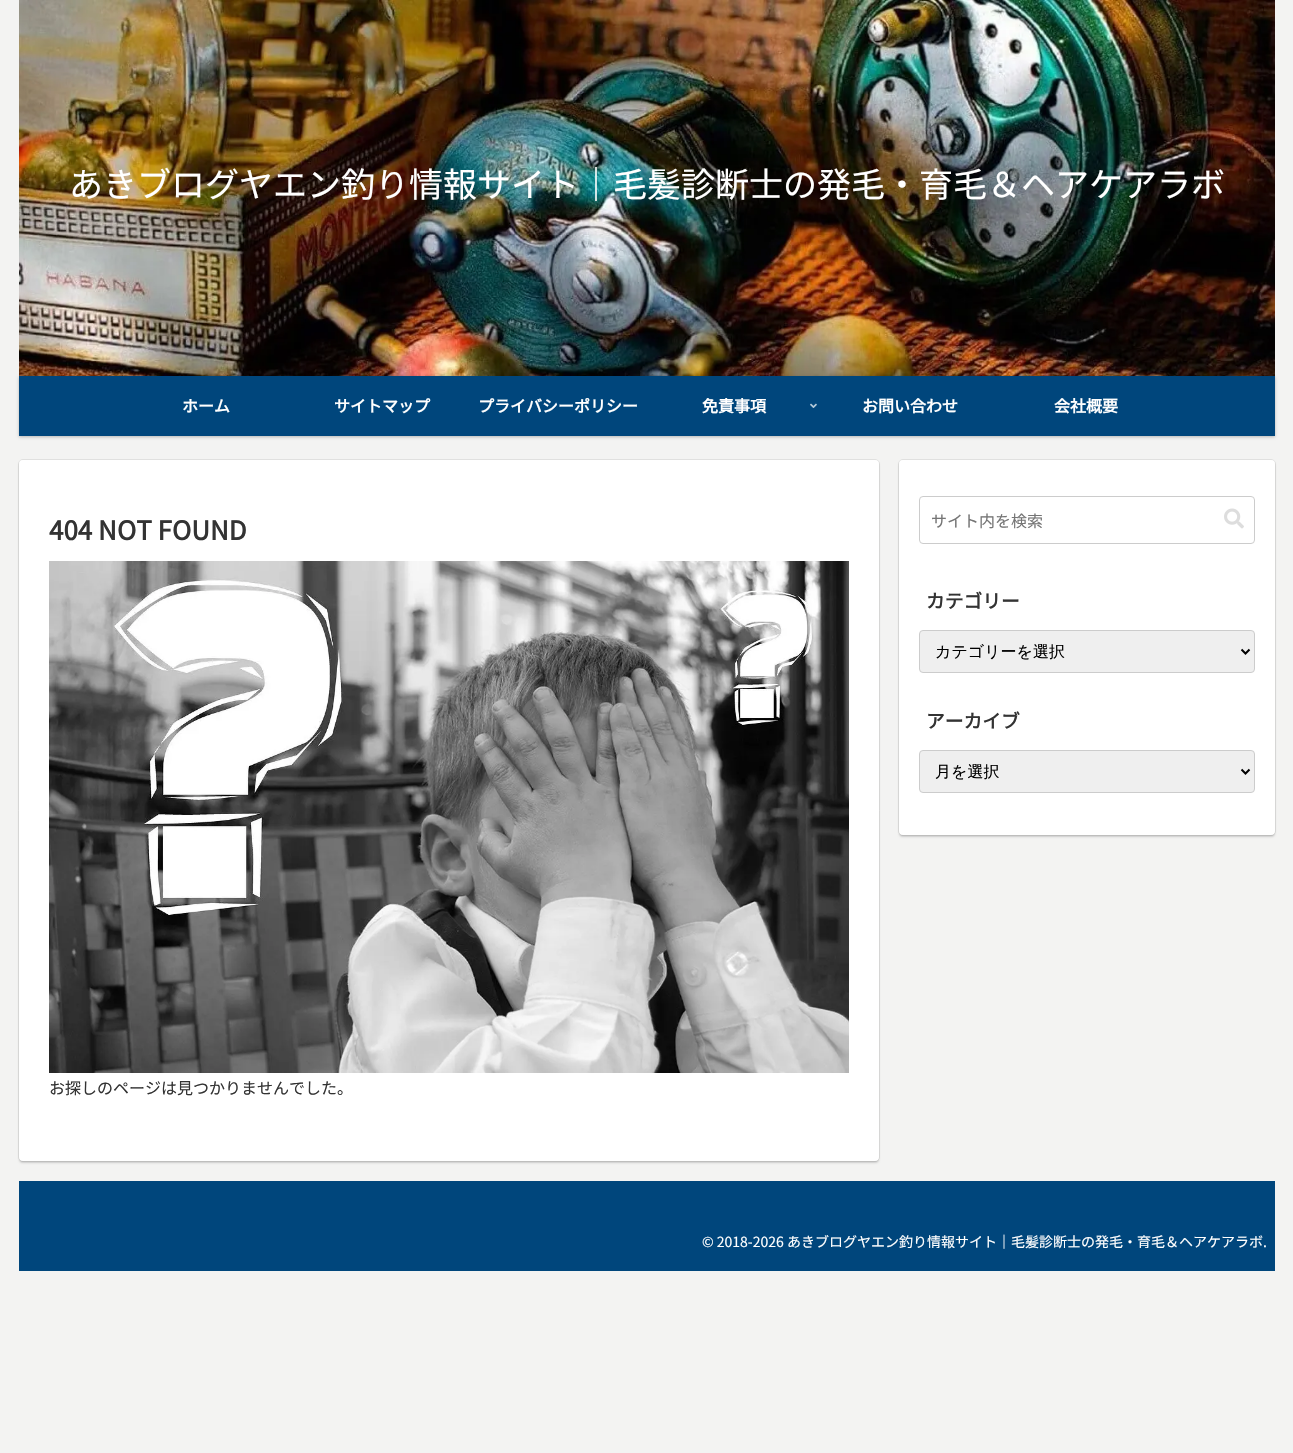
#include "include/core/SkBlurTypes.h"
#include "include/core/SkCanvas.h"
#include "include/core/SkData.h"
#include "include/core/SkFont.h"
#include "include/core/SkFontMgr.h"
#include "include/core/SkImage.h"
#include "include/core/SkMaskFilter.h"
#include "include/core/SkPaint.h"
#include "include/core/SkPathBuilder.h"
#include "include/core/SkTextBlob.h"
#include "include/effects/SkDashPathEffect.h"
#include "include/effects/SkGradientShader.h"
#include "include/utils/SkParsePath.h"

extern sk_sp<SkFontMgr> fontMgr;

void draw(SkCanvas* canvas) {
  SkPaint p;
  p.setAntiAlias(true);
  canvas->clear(SkColorSetRGB(243, 243, 242));
  canvas->drawImageRect(SkImages::DeferredFromEncodedData(SkData::MakeFromFileName("images/1.png")), SkRect::MakeLTRB(19, 0, 1275, 376), SkSamplingOptions());
  p.setColor(SkColorSetARGB(64, 0, 0, 0));
  p.setMaskFilter(SkMaskFilter::MakeBlur(kNormal_SkBlurStyle, 1.5f));
  canvas->drawRect(SkRect::MakeLTRB(19, 377, 1275, 437), p);
  p.setMaskFilter(nullptr);
  p.setColor(SkColorSetRGB(0, 70, 124));
  canvas->drawRect(SkRect::MakeLTRB(19, 376, 1275, 436), p);
  canvas->drawImageRect(SkImages::DeferredFromEncodedData(SkData::MakeFromFileName("images/2.png")), SkRect::MakeLTRB(810, 403, 817, 408), SkSamplingOptions());
  p.setStyle(SkPaint::kStroke_Style);
  p.setStrokeWidth(1);
  p.setColor(SkColorSetRGB(224, 224, 223));
  canvas->drawRoundRect(SkRect::MakeLTRB(18.5f, 459.5f, 879.5f, 1161.5f), 4.5f, 4.5f, p);
  p.setStyle(SkPaint::kFill_Style);
  p.setColor(SkColorSetARGB(41, 0, 0, 0));
  p.setMaskFilter(SkMaskFilter::MakeBlur(kNormal_SkBlurStyle, 1));
  canvas->drawRoundRect(SkRect::MakeLTRB(19, 462, 879, 1163), 4, 4, p);
  p.setMaskFilter(nullptr);
  p.setColor(SK_ColorWHITE);
  canvas->drawRoundRect(SkRect::MakeLTRB(19, 460, 879, 1161), 4, 4, p);
  canvas->drawImageRect(SkImages::DeferredFromEncodedData(SkData::MakeFromFileName("images/3.png")), SkRect::MakeLTRB(49, 561, 849, 1073), SkSamplingOptions());
  p.setStyle(SkPaint::kStroke_Style);
  p.setColor(SkColorSetRGB(224, 224, 223));
  canvas->drawRoundRect(SkRect::MakeLTRB(898.5f, 459.5f, 1275.5f, 835.5f), 4.5f, 4.5f, p);
  p.setStyle(SkPaint::kFill_Style);
  p.setColor(SkColorSetARGB(41, 0, 0, 0));
  p.setMaskFilter(SkMaskFilter::MakeBlur(kNormal_SkBlurStyle, 1));
  canvas->drawRoundRect(SkRect::MakeLTRB(899, 462, 1275, 837), 4, 4, p);
  p.setMaskFilter(nullptr);
  p.setColor(SK_ColorWHITE);
  canvas->drawRoundRect(SkRect::MakeLTRB(899, 460, 1275, 835), 4, 4, p);
  p.setStyle(SkPaint::kStroke_Style);
  p.setColor(SkColorSetRGB(204, 204, 204));
  canvas->drawRoundRect(SkRect::MakeLTRB(919.5f, 496.5f, 1254.5f, 543.5f), 3.5f, 3.5f, p);
  canvas->drawImageRect(SkImages::DeferredFromEncodedData(SkData::MakeFromFileName("images/4.png")), SkRect::MakeLTRB(1224, 508, 1244, 529), SkSamplingOptions());
  p.setStyle(SkPaint::kFill_Style);
  p.setColor(SkColorSetRGB(239, 239, 239));
  canvas->drawRoundRect(SkRect::MakeLTRB(919.5f, 630.5f, 1254.5f, 672.5f), 3.5f, 3.5f, p);
  p.setStyle(SkPaint::kStroke_Style);
  p.setColor(SkColorSetRGB(204, 204, 204));
  canvas->drawRoundRect(SkRect::MakeLTRB(919.5f, 630.5f, 1254.5f, 672.5f), 3.5f, 3.5f, p);
  p.setStrokeWidth(2);
  p.setColor(SK_ColorBLACK);
  canvas->drawPath(SkPathBuilder().moveTo(1241.5f, 649.5f).lineTo(1245.5f, 653.5f).lineTo(1249.5f, 649.5f).detach(), p);
  p.setStyle(SkPaint::kFill_Style);
  p.setColor(SkColorSetRGB(239, 239, 239));
  canvas->drawRoundRect(SkRect::MakeLTRB(919.5f, 750.5f, 1254.5f, 792.5f), 3.5f, 3.5f, p);
  p.setStyle(SkPaint::kStroke_Style);
  p.setStrokeWidth(1);
  p.setColor(SkColorSetRGB(204, 204, 204));
  canvas->drawRoundRect(SkRect::MakeLTRB(919.5f, 750.5f, 1254.5f, 792.5f), 3.5f, 3.5f, p);
  p.setStrokeWidth(2);
  p.setColor(SK_ColorBLACK);
  canvas->drawPath(SkPathBuilder().moveTo(1241.5f, 769.5f).lineTo(1245.5f, 773.5f).lineTo(1249.5f, 769.5f).detach(), p);
  p.setStyle(SkPaint::kFill_Style);
  p.setColor(SkColorSetRGB(0, 70, 124));
  canvas->drawRect(SkRect::MakeLTRB(19, 1181, 1275, 1271), p);
  SkFont font1(fontMgr->matchFamilyStyle("Noto Sans JP", SkFontStyle(100, SkFontStyle::kNormal_Width, SkFontStyle::kUpright_Slant)), 34);
  font1.setSubpixel(true);
  p.setColor(SK_ColorWHITE);
  canvas->drawString("あきブログヤエン釣り情報サイト｜毛髪診断士の発毛・育毛＆ヘアケアラボ", 69, 197, font1, p);
  SkFont font2(fontMgr->matchFamilyStyle("Noto Sans JP", SkFontStyle::Bold()), 16);
  font2.setSubpixel(true);
  canvas->drawString("ホーム", 182, 412, font2, p);
  canvas->drawString("サイトマップ", 334, 412, font2, p);
  canvas->drawString("プライバシーポリシー", 478, 412, font2, p);
  canvas->drawString("免責事項", 702, 412, font2, p);
  canvas->drawString("お問い合わせ", 862, 412, font2, p);
  canvas->drawString("会社概要", 1054, 412, font2, p);
  SkFont font3(fontMgr->matchFamilyStyle("Noto Sans JP", SkFontStyle::Bold()), 26);
  font3.setSubpixel(true);
  p.setColor(SkColorSetRGB(51, 51, 51));
  canvas->drawString("404 NOT FOUND", 49, 540, font3, p);
  SkFont font4(fontMgr->matchFamilyStyle("Noto Sans JP", SkFontStyle(100, SkFontStyle::kNormal_Width, SkFontStyle::kUpright_Slant)), 16);
  font4.setSubpixel(true);
  canvas->drawString("お探しのページは見つかりませんでした。", 49, 1094, font4, p);
  p.setColor(SkColorSetRGB(117, 117, 117));
  canvas->drawString("サイト内を検索", 931, 527, font4, p);
  SkFont font5(fontMgr->matchFamilyStyle("Noto Sans JP", SkFontStyle::Bold()), 18.75f);
  font5.setSubpixel(true);
  p.setColor(SkColorSetRGB(51, 51, 51));
  canvas->drawString("カテゴリー", 926, 608, font5, p);
  SkFont font6(fontMgr->matchFamilyStyle("WenQuanYi Zen Hei", SkFontStyle(500, SkFontStyle::kNormal_Width, SkFontStyle::kUpright_Slant)), 16);
  font6.setSubpixel(true);
  p.setColor(SK_ColorBLACK);
  canvas->drawString("カテゴリーを選択", 935, 657, font6, p);
  p.setColor(SkColorSetRGB(51, 51, 51));
  canvas->drawString("アーカイブ", 926, 728, font5, p);
  p.setColor(SK_ColorBLACK);
  canvas->drawString("月を選択", 935, 777, font6, p);
  SkFont font7(fontMgr->matchFamilyStyle("Noto Sans JP", SkFontStyle(100, SkFontStyle::kNormal_Width, SkFontStyle::kUpright_Slant)), 14);
  font7.setSubpixel(true);
  p.setColor(SK_ColorWHITE);
  canvas->drawString("© 2018-2026 あきブログヤエン釣り情報サイト｜毛髪診断士の発毛・育毛＆ヘアケアラボ.", 702, 1247, font7, p);
}
